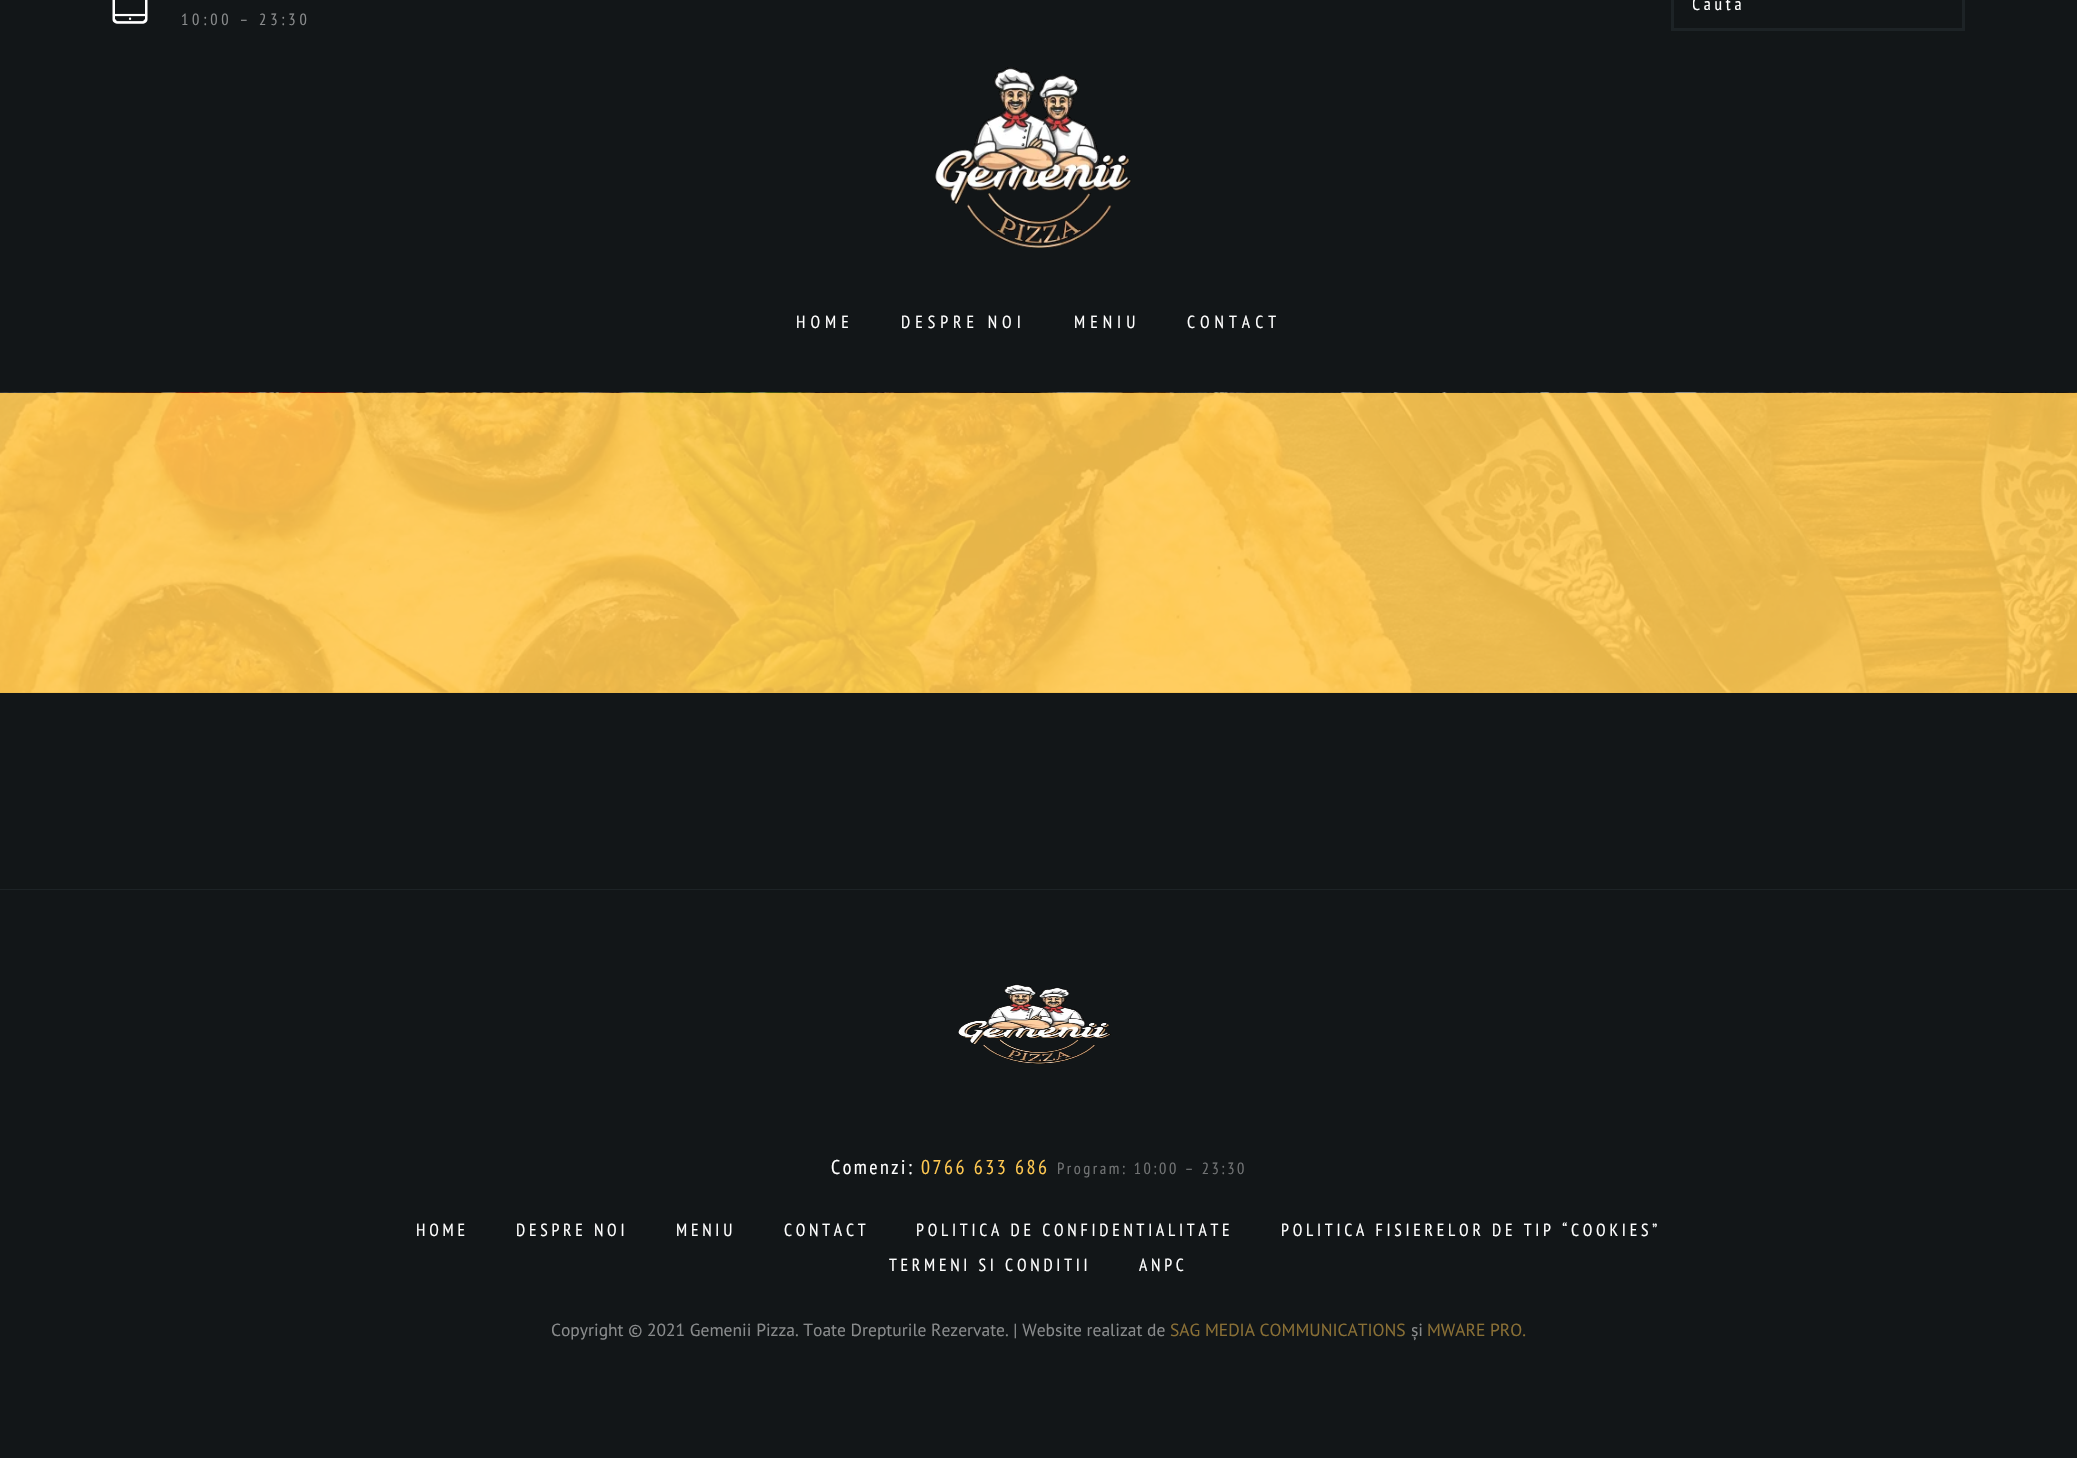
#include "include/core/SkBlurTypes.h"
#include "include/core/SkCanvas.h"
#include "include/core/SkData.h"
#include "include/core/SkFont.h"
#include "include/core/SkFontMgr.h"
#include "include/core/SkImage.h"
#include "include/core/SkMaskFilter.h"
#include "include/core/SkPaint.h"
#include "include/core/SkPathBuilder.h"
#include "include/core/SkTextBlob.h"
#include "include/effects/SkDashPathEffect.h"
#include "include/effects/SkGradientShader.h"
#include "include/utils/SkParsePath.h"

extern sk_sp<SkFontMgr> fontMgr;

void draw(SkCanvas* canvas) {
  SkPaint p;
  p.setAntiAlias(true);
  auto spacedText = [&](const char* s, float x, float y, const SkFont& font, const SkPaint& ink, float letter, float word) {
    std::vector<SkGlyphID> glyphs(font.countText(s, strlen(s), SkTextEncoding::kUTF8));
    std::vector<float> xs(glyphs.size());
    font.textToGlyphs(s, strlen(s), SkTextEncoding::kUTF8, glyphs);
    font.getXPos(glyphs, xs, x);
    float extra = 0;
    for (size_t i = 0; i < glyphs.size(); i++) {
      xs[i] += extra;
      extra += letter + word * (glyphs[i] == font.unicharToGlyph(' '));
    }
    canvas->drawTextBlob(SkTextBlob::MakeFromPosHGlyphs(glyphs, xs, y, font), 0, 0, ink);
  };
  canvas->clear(SkColorSetRGB(18, 22, 24));
  p.setColor(SkColorSetRGB(231, 182, 75));
  canvas->drawRect(SkRect::MakeLTRB(0, 692, 2077, 693), p);
  p.setStyle(SkPaint::kStroke_Style);
  p.setStrokeWidth(3);
  p.setColor(SkColorSetRGB(29, 35, 38));
  canvas->drawRect(SkRect::MakeLTRB(1672.5f, -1.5f, 1963.5f, 29.5f), p);
  canvas->drawImageRect(SkImages::DeferredFromEncodedData(SkData::MakeFromFileName("images/1.png")), SkRect::MakeLTRB(112, 0, 148, 24), SkSamplingOptions());
  canvas->drawImageRect(SkImages::DeferredFromEncodedData(SkData::MakeFromFileName("images/2.png")), SkRect::MakeLTRB(935, 67, 1132, 248), SkSamplingOptions());
  canvas->drawImageRect(SkImages::DeferredFromEncodedData(SkData::MakeFromFileName("images/3.png")), SkRect::MakeLTRB(0, 392, 2077, 693), SkSamplingOptions());
  p.setStyle(SkPaint::kFill_Style);
  canvas->drawRect(SkRect::MakeLTRB(0, 889, 2077, 890), p);
  canvas->drawImageRect(SkImages::DeferredFromEncodedData(SkData::MakeFromFileName("images/4.png")), SkRect::MakeLTRB(958, 984, 1111, 1064), SkSamplingOptions());
  canvas->save();
  canvas->clipRect(SkRect::MakeLTRB(1693, 0, 1944, 20));
  SkFont font1(fontMgr->matchFamilyStyle("PT Sans Narrow", SkFontStyle::Normal()), 17.5f);
  font1.setSubpixel(true);
  p.setColor(SK_ColorWHITE);
  spacedText("Cauta", 1692, 10, font1, p, 3.75f, 0);
  canvas->restore();
  SkFont font2(fontMgr->matchFamilyStyle("PT Sans Narrow", SkFontStyle::Normal()), 16.25f);
  font2.setSubpixel(true);
  p.setColor(SkColorSetRGB(137, 139, 140));
  spacedText("10:00 – 23:30", 181, 25, font2, p, 3.75f, 0);
  p.setColor(SK_ColorWHITE);
  spacedText("HOME", 796, 328, font1, p, 5, 0);
  spacedText("DESPRE NOI", 901, 328, font1, p, 5, 0);
  spacedText("MENIU", 1074, 328, font1, p, 5, 0);
  spacedText("CONTACT", 1187, 328, font1, p, 5, 0);
  SkFont font3(fontMgr->matchFamilyStyle("PT Sans Narrow", SkFontStyle::Normal()), 20);
  font3.setSubpixel(true);
  spacedText("Comenzi:", 831, 1174, font3, p, 2.5f, 0);
  p.setColor(SkColorSetRGB(255, 200, 81));
  spacedText("0766 633 686", 921, 1174, font3, p, 2.5f, 0);
  p.setColor(SkColorSetRGB(113, 115, 116));
  spacedText("Program: 10:00 – 23:30", 1057, 1174, font2, p, 2.5f, 0);
  p.setColor(SK_ColorWHITE);
  spacedText("HOME", 416, 1236, font1, p, 3.75f, 0);
  spacedText("DESPRE NOI", 516, 1236, font1, p, 3.75f, 0);
  spacedText("MENIU", 676, 1236, font1, p, 3.75f, 0);
  spacedText("CONTACT", 784, 1236, font1, p, 3.75f, 0);
  spacedText("POLITICA DE CONFIDENTIALITATE", 916, 1236, font1, p, 3.75f, 0);
  spacedText("POLITICA FISIERELOR DE TIP “COOKIES”", 1281, 1236, font1, p, 3.75f, 0);
  spacedText("TERMENI SI CONDITII", 889, 1271, font1, p, 3.75f, 0);
  spacedText("ANPC", 1139, 1271, font1, p, 3.75f, 0);
  SkFont font4(fontMgr->matchFamilyStyle("PT Sans", SkFontStyle::Normal()), 17.5f);
  font4.setSubpixel(true);
  p.setColor(SkColorSetRGB(137, 139, 140));
  canvas->drawString("Copyright © 2021 Gemenii Pizza. Toate Drepturile Rezervate. | Website realizat de", 551, 1336, font4, p);
  p.setColor(SkColorSetRGB(137, 111, 53));
  canvas->drawString("SAG MEDIA COMMUNICATIONS", 1170, 1336, font4, p);
  p.setColor(SkColorSetRGB(137, 139, 140));
  canvas->drawString("și", 1411, 1336, font4, p);
  p.setColor(SkColorSetRGB(137, 111, 53));
  canvas->drawString("MWARE PRO.", 1427, 1336, font4, p);
}
